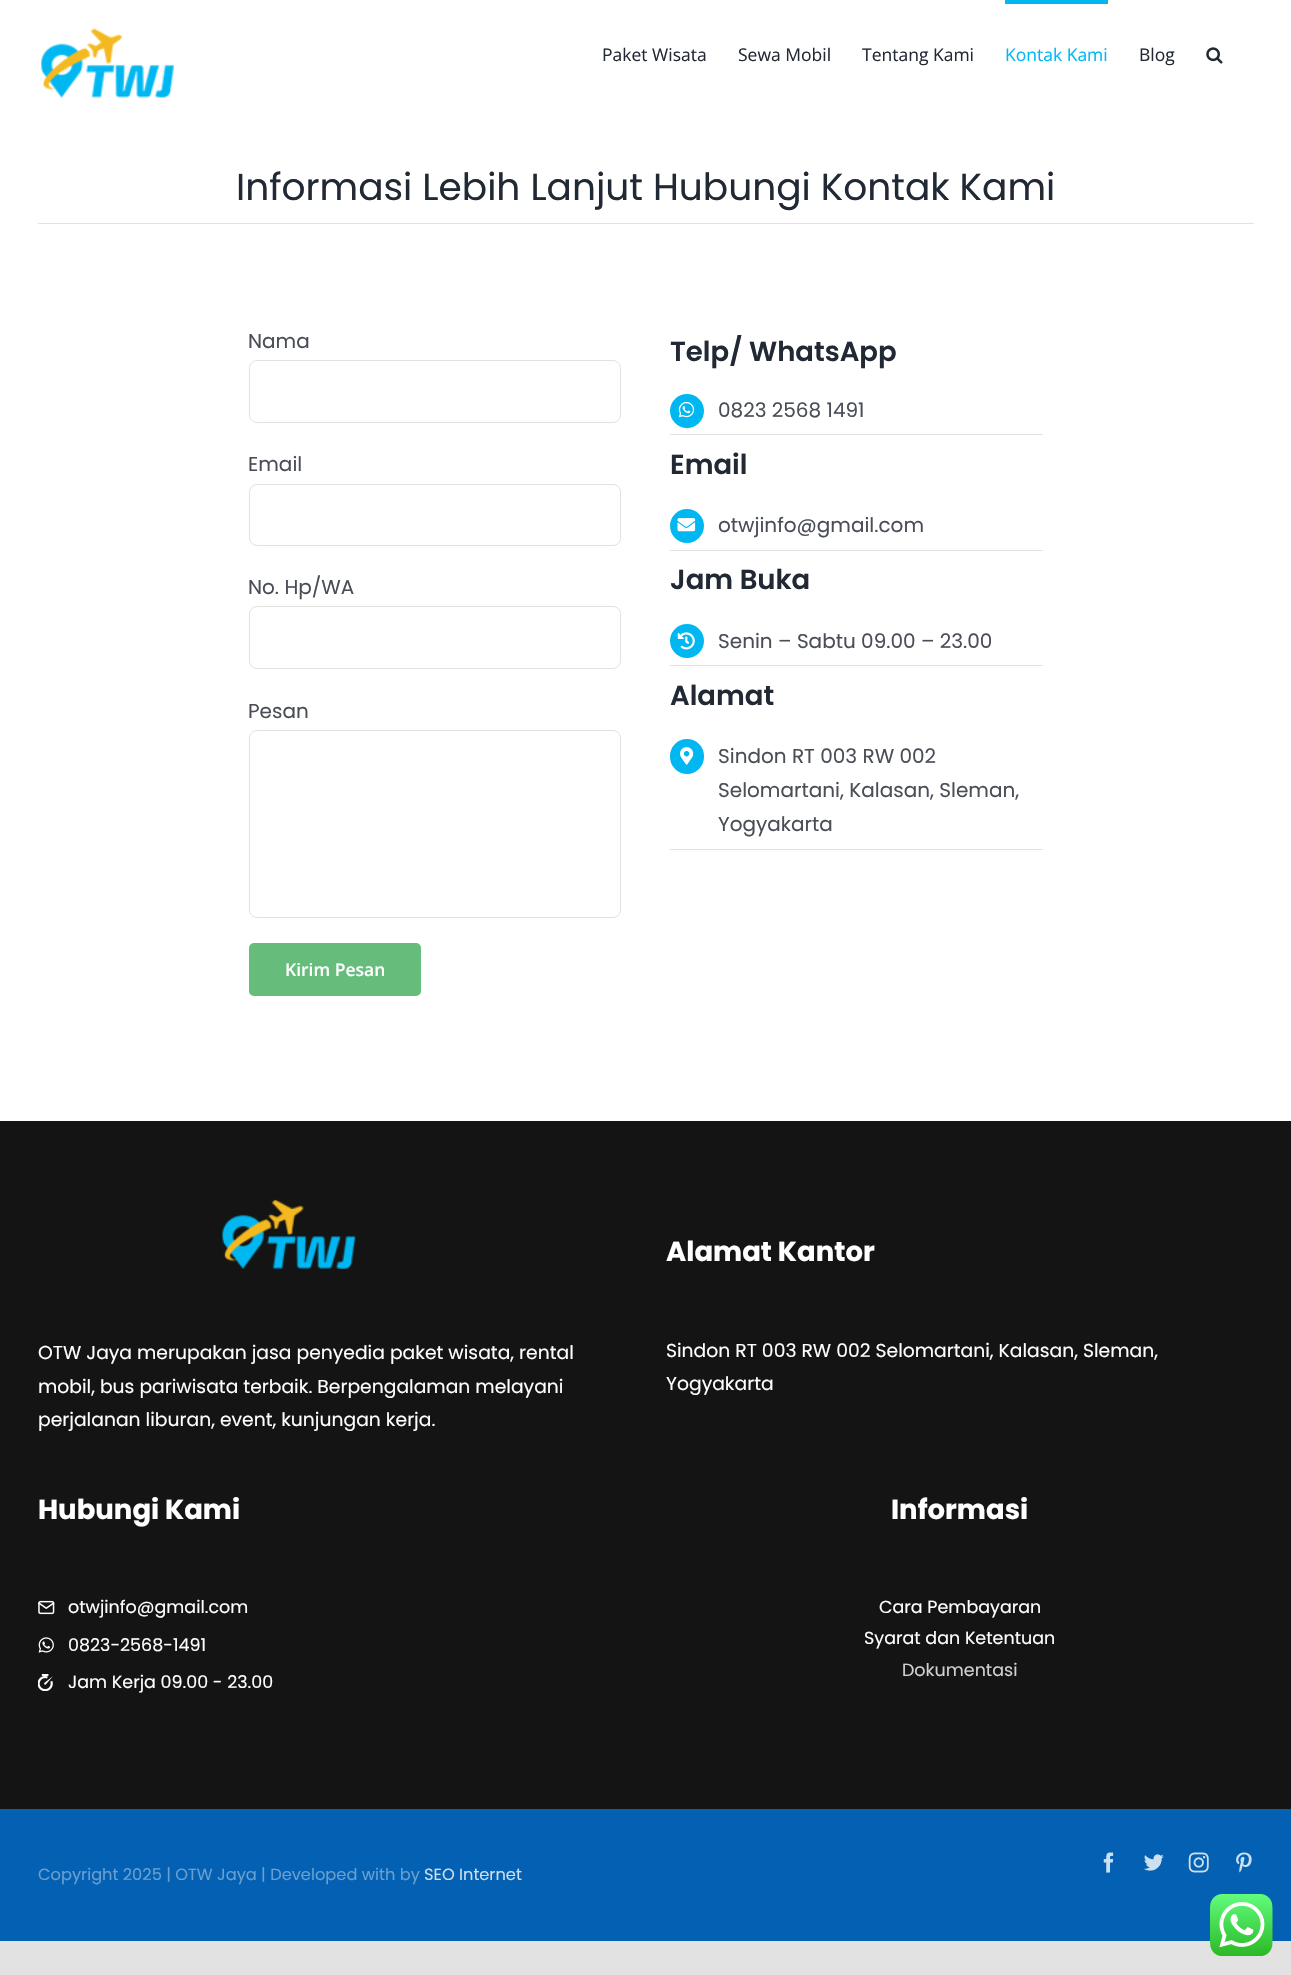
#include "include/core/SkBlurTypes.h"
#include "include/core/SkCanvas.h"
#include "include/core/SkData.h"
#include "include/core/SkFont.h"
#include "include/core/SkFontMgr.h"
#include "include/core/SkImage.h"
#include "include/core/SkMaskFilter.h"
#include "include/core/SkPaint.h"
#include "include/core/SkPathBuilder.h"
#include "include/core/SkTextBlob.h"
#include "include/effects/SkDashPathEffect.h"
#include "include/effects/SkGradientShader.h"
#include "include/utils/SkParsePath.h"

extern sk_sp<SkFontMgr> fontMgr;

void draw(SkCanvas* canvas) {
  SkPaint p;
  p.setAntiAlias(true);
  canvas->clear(SkColorSetRGB(226, 226, 226));
  p.setColor(SK_ColorWHITE);
  canvas->drawRect(SkRect::MakeLTRB(0, 0, 1291, 1121), p);
  canvas->drawImageRect(SkImages::DeferredFromEncodedData(SkData::MakeFromFileName("images/1.png")), SkRect::MakeLTRB(41, 28, 174, 98), SkSamplingOptions());
  p.setColor(SkColorSetRGB(0, 183, 241));
  canvas->drawRect(SkRect::MakeLTRB(1005, 0, 1108, 4), p);
  canvas->drawImageRect(SkImages::DeferredFromEncodedData(SkData::MakeFromFileName("images/2.png")), SkRect::MakeLTRB(1206, 47, 1223, 64), SkSamplingOptions());
  p.setColor(SkColorSetRGB(226, 226, 226));
  canvas->drawRect(SkRect::MakeLTRB(38, 223, 1254, 224), p);
  p.setStyle(SkPaint::kStroke_Style);
  p.setStrokeWidth(1);
  canvas->drawRoundRect(SkRect::MakeLTRB(249.5f, 360.5f, 620.5f, 422.5f), 7.5f, 7.5f, p);
  canvas->drawRoundRect(SkRect::MakeLTRB(249.5f, 484.5f, 620.5f, 545.5f), 7.5f, 7.5f, p);
  canvas->drawRoundRect(SkRect::MakeLTRB(249.5f, 606.5f, 620.5f, 668.5f), 7.5f, 7.5f, p);
  canvas->drawRoundRect(SkRect::MakeLTRB(249.5f, 730.5f, 620.5f, 917.5f), 7.5f, 7.5f, p);
  p.setStyle(SkPaint::kFill_Style);
  p.setColor(SkColorSetRGB(101, 188, 123));
  canvas->drawRoundRect(SkRect::MakeLTRB(249, 943, 421, 996), 5, 5, p);
  p.setColor(SkColorSetRGB(0, 183, 241));
  canvas->drawCircle(687, 411, 17, p);
  canvas->drawImageRect(SkImages::DeferredFromEncodedData(SkData::MakeFromFileName("images/3.png")), SkRect::MakeLTRB(678, 401, 695, 418), SkSamplingOptions());
  p.setColor(SkColorSetRGB(226, 226, 226));
  canvas->drawRect(SkRect::MakeLTRB(670, 434, 1043, 435), p);
  p.setColor(SkColorSetRGB(0, 183, 241));
  canvas->drawCircle(687, 526, 17, p);
  canvas->drawImageRect(SkImages::DeferredFromEncodedData(SkData::MakeFromFileName("images/4.png")), SkRect::MakeLTRB(677, 518, 696, 532), SkSamplingOptions());
  p.setColor(SkColorSetRGB(226, 226, 226));
  canvas->drawRect(SkRect::MakeLTRB(670, 550, 1043, 551), p);
  p.setColor(SkColorSetRGB(0, 183, 241));
  canvas->drawCircle(687, 641, 17, p);
  canvas->drawImageRect(SkImages::DeferredFromEncodedData(SkData::MakeFromFileName("images/5.png")), SkRect::MakeLTRB(677, 632, 695, 650), SkSamplingOptions());
  p.setColor(SkColorSetRGB(226, 226, 226));
  canvas->drawRect(SkRect::MakeLTRB(670, 665, 1043, 666), p);
  p.setColor(SkColorSetRGB(0, 183, 241));
  canvas->drawRoundRect(SkRect::MakeLTRB(670, 739, 704, 774), 17, 17, p);
  canvas->drawImageRect(SkImages::DeferredFromEncodedData(SkData::MakeFromFileName("images/6.png")), SkRect::MakeLTRB(680, 747, 694, 765), SkSamplingOptions());
  p.setColor(SkColorSetRGB(226, 226, 226));
  canvas->drawRect(SkRect::MakeLTRB(670, 849, 1043, 850), p);
  p.setColor(SkColorSetRGB(20, 20, 20));
  canvas->drawRect(SkRect::MakeLTRB(0, 1121, 1291, 1809), p);
  canvas->drawImageRect(SkImages::DeferredFromEncodedData(SkData::MakeFromFileName("images/7.png")), SkRect::MakeLTRB(222, 1199, 356, 1269), SkSamplingOptions());
  canvas->drawImageRect(SkImages::DeferredFromEncodedData(SkData::MakeFromFileName("images/8.png")), SkRect::MakeLTRB(38, 1600, 55, 1615), SkSamplingOptions());
  canvas->drawImageRect(SkImages::DeferredFromEncodedData(SkData::MakeFromFileName("images/9.png")), SkRect::MakeLTRB(38, 1637, 54, 1653), SkSamplingOptions());
  canvas->drawImageRect(SkImages::DeferredFromEncodedData(SkData::MakeFromFileName("images/10.png")), SkRect::MakeLTRB(38, 1674, 53, 1691), SkSamplingOptions());
  p.setColor(SkColorSetRGB(3, 96, 178));
  canvas->drawRect(SkRect::MakeLTRB(0, 1809, 1291, 1941), p);
  canvas->drawImageRect(SkImages::DeferredFromEncodedData(SkData::MakeFromFileName("images/11.png")), SkRect::MakeLTRB(1103, 1852, 1114, 1873), SkSamplingOptions());
  canvas->drawImageRect(SkImages::DeferredFromEncodedData(SkData::MakeFromFileName("images/12.png")), SkRect::MakeLTRB(1144, 1854, 1164, 1871), SkSamplingOptions());
  canvas->drawImageRect(SkImages::DeferredFromEncodedData(SkData::MakeFromFileName("images/13.png")), SkRect::MakeLTRB(1188, 1852, 1209, 1873), SkSamplingOptions());
  canvas->drawImageRect(SkImages::DeferredFromEncodedData(SkData::MakeFromFileName("images/14.png")), SkRect::MakeLTRB(1236, 1852, 1252, 1873), SkSamplingOptions());
  canvas->drawImageRect(SkImages::DeferredFromEncodedData(SkData::MakeFromFileName("images/15.png")), SkRect::MakeLTRB(1210, 1894, 1273, 1956), SkSamplingOptions());
  SkFont font1(fontMgr->matchFamilyStyle("Open Sans", SkFontStyle::Normal()), 17.5f);
  font1.setSubpixel(true);
  p.setColor(SkColorSetRGB(33, 41, 52));
  canvas->drawString("Paket Wisata", 602, 61, font1, p);
  canvas->drawString("Sewa Mobil", 738, 61, font1, p);
  canvas->drawString("Tentang Kami", 862, 61, font1, p);
  p.setColor(SkColorSetRGB(0, 183, 241));
  canvas->drawString("Kontak Kami", 1005, 61, font1, p);
  p.setColor(SkColorSetRGB(33, 41, 52));
  canvas->drawString("Blog", 1139, 61, font1, p);
  SkFont font2(fontMgr->matchFamilyStyle("Poppins", SkFontStyle::Normal()), 37.5f);
  font2.setSubpixel(true);
  canvas->drawString("Informasi Lebih Lanjut Hubungi Kontak Kami", 236, 200, font2, p);
  SkFont font3(fontMgr->matchFamilyStyle("Poppins", SkFontStyle::Normal()), 20);
  font3.setSubpixel(true);
  p.setColor(SkColorSetRGB(74, 78, 87));
  canvas->drawString("Nama", 248, 348, font3, p);
  canvas->drawString("Email", 248, 471, font3, p);
  canvas->drawString("No. Hp/WA", 248, 594, font3, p);
  canvas->drawString("Pesan", 248, 718, font3, p);
  SkFont font4(fontMgr->matchFamilyStyle("Open Sans", SkFontStyle(600, SkFontStyle::kNormal_Width, SkFontStyle::kUpright_Slant)), 17.5f);
  font4.setSubpixel(true);
  p.setColor(SK_ColorWHITE);
  canvas->drawString("Kirim Pesan", 285, 976, font4, p);
  SkFont font5(fontMgr->matchFamilyStyle("Poppins", SkFontStyle(600, SkFontStyle::kNormal_Width, SkFontStyle::kUpright_Slant)), 27.5f);
  font5.setSubpixel(true);
  p.setColor(SkColorSetRGB(33, 41, 52));
  canvas->drawString("Telp/ WhatsApp", 670, 361, font5, p);
  p.setColor(SkColorSetRGB(74, 78, 87));
  canvas->drawString("0823 2568 1491", 718, 417, font3, p);
  p.setColor(SkColorSetRGB(33, 41, 52));
  canvas->drawString("Email", 670, 474, font5, p);
  p.setColor(SkColorSetRGB(74, 78, 87));
  canvas->drawString("otwjinfo@gmail.com", 718, 532, font3, p);
  p.setColor(SkColorSetRGB(33, 41, 52));
  canvas->drawString("Jam Buka", 670, 589, font5, p);
  p.setColor(SkColorSetRGB(74, 78, 87));
  canvas->drawString("Senin – Sabtu 09.00 – 23.00", 718, 648, font3, p);
  p.setColor(SkColorSetRGB(33, 41, 52));
  canvas->drawString("Alamat", 670, 705, font5, p);
  p.setColor(SkColorSetRGB(74, 78, 87));
  canvas->drawString("Sindon RT 003 RW 002", 718, 763, font3, p);
  canvas->drawString("Selomartani, Kalasan, Sleman,", 718, 797, font3, p);
  canvas->drawString("Yogyakarta", 718, 831, font3, p);
  SkFont font6(fontMgr->matchFamilyStyle("Poppins", SkFontStyle::Normal()), 18.75f);
  font6.setSubpixel(true);
  p.setColor(SK_ColorWHITE);
  canvas->drawString("OTW Jaya merupakan jasa penyedia paket wisata, rental", 38, 1359, font6, p);
  canvas->drawString("mobil, bus pariwisata terbaik. Berpengalaman melayani", 38, 1393, font6, p);
  canvas->drawString("perjalanan liburan, event, kunjungan kerja.", 38, 1426, font6, p);
  SkFont font7(fontMgr->matchFamilyStyle("Poppins", SkFontStyle::Bold()), 27.5f);
  font7.setSubpixel(true);
  canvas->drawString("Alamat Kantor", 666, 1261, font7, p);
  canvas->drawString("Sindon RT 003 RW 002 Selomartani, Kalasan, Sleman,", 666, 1357, font6, p);
  canvas->drawString("Yogyakarta", 666, 1390, font6, p);
  canvas->drawString("Hubungi Kami", 38, 1519, font7, p);
  SkFont font8(fontMgr->matchFamilyStyle("Poppins", SkFontStyle::Normal()), 17.5f);
  font8.setSubpixel(true);
  canvas->drawString("otwjinfo@gmail.com", 68, 1613, font8, p);
  canvas->drawString("0823-2568-1491", 68, 1651, font8, p);
  canvas->drawString("Jam Kerja 09.00 - 23.00", 68, 1688, font8, p);
  canvas->drawString("Informasi", 891, 1519, font7, p);
  canvas->drawString("Cara Pembayaran", 879, 1613, font8, p);
  canvas->drawString("Syarat dan Ketentuan", 864, 1644, font8, p);
  p.setColor(SkColorSetRGB(208, 208, 208));
  canvas->drawString("Dokumentasi", 902, 1676, font8, p);
  SkFont font9(fontMgr->matchFamilyStyle("Poppins", SkFontStyle::Normal()), 16.25f);
  font9.setSubpixel(true);
  p.setColor(SkColorSetRGB(104, 160, 209));
  canvas->drawString("Copyright 2025 | OTW Jaya | Developed with by", 38, 1880, font9, p);
  p.setColor(SkColorSetRGB(205, 223, 240));
  canvas->drawString("SEO Internet", 424, 1880, font9, p);
}
